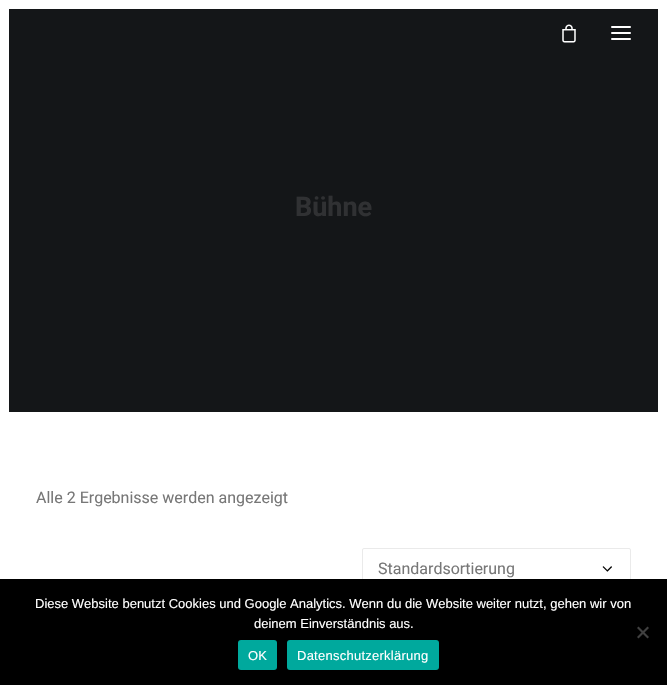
#include "include/core/SkBlurTypes.h"
#include "include/core/SkCanvas.h"
#include "include/core/SkData.h"
#include "include/core/SkFont.h"
#include "include/core/SkFontMgr.h"
#include "include/core/SkImage.h"
#include "include/core/SkMaskFilter.h"
#include "include/core/SkPaint.h"
#include "include/core/SkPathBuilder.h"
#include "include/core/SkTextBlob.h"
#include "include/effects/SkDashPathEffect.h"
#include "include/effects/SkGradientShader.h"
#include "include/utils/SkParsePath.h"

extern sk_sp<SkFontMgr> fontMgr;

void draw(SkCanvas* canvas) {
  SkPaint p;
  p.setAntiAlias(true);
  auto spacedText = [&](const char* s, float x, float y, const SkFont& font, const SkPaint& ink, float letter, float word) {
    std::vector<SkGlyphID> glyphs(font.countText(s, strlen(s), SkTextEncoding::kUTF8));
    std::vector<float> xs(glyphs.size());
    font.textToGlyphs(s, strlen(s), SkTextEncoding::kUTF8, glyphs);
    font.getXPos(glyphs, xs, x);
    float extra = 0;
    for (size_t i = 0; i < glyphs.size(); i++) {
      xs[i] += extra;
      extra += letter + word * (glyphs[i] == font.unicharToGlyph(' '));
    }
    canvas->drawTextBlob(SkTextBlob::MakeFromPosHGlyphs(glyphs, xs, y, font), 0, 0, ink);
  };
  canvas->clear(SkColorSetRGB(20, 22, 24));
  p.setColor(SK_ColorWHITE);
  canvas->drawRect(SkRect::MakeLTRB(0, 0, 9, 579), p);
  canvas->drawRect(SkRect::MakeLTRB(9, 0, 658, 9), p);
  canvas->drawRect(SkRect::MakeLTRB(658, 0, 667, 579), p);
  canvas->drawImageRect(SkImages::DeferredFromEncodedData(SkData::MakeFromFileName("images/1.png")), SkRect::MakeLTRB(562, 24, 576, 43), SkSamplingOptions());
  canvas->drawRoundRect(SkRect::MakeLTRB(611, 32, 631, 34), 1, 1, p);
  canvas->drawRoundRect(SkRect::MakeLTRB(611, 26, 631, 28), 1, 1, p);
  canvas->drawRoundRect(SkRect::MakeLTRB(611, 38, 631, 40), 1, 1, p);
  canvas->drawRect(SkRect::MakeLTRB(9, 412, 658, 579), p);
  canvas->drawImageRect(SkImages::DeferredFromEncodedData(SkData::MakeFromFileName("images/2.png")), SkRect::MakeLTRB(602, 566, 612, 572), SkSamplingOptions());
  p.setStyle(SkPaint::kStroke_Style);
  p.setStrokeWidth(1);
  p.setColor(SkColorSetRGB(234, 234, 234));
  canvas->drawRoundRect(SkRect::MakeLTRB(362.5f, 548.5f, 630.5f, 588.5f), 1.5f, 1.5f, p);
  p.setStyle(SkPaint::kFill_Style);
  p.setColor(SK_ColorBLACK);
  canvas->drawRect(SkRect::MakeLTRB(0, 579, 667, 685), p);
  p.setColor(SkColorSetRGB(64, 64, 64));
  canvas->drawPath(SkPathBuilder().moveTo(647.5f, 626.5f).lineTo(649, 628).lineTo(638.5f, 638.5f).lineTo(637, 637).close().detach(), p);
  canvas->drawPath(SkPathBuilder().moveTo(637, 628).lineTo(638.5f, 626.5f).lineTo(649, 637).lineTo(647.5f, 638.5f).close().detach(), p);
  p.setColor(SkColorSetRGB(0, 169, 157));
  canvas->drawRoundRect(SkRect::MakeLTRB(238, 640, 277, 670), 3, 3, p);
  canvas->drawRoundRect(SkRect::MakeLTRB(287, 640, 439, 670), 3, 3, p);
  SkFont font1(fontMgr->matchFamilyStyle("Roboto", SkFontStyle::Bold()), 27);
  font1.setSubpixel(true);
  p.setColor(SkColorSetRGB(48, 49, 51));
  canvas->drawString("Bühne", 295, 216, font1, p);
  SkFont font2(fontMgr->matchFamilyStyle("Roboto", SkFontStyle::Normal()), 16);
  font2.setSubpixel(true);
  p.setColor(SkColorSetRGB(119, 119, 119));
  canvas->drawString("Alle 2 Ergebnisse werden angezeigt", 36, 503, font2, p);
  canvas->drawString("Standardsortierung", 378, 574, font2, p);
  SkFont font3(fontMgr->matchFamilyStyle("Liberation Sans", SkFontStyle::Normal()), 13);
  font3.setSubpixel(true);
  p.setColor(SK_ColorWHITE);
  canvas->drawString("Diese Website benutzt Cookies und Google Analytics. Wenn du die Website weiter nutzt, gehen wir von", 35, 608, font3, p);
  canvas->drawString("deinem Einverständnis aus.", 254, 628, font3, p);
  spacedText("OK", 248, 660, font3, p, 0.25f, 0);
  spacedText("Datenschutzerklärung", 297, 660, font3, p, 0.25f, 0);
}
